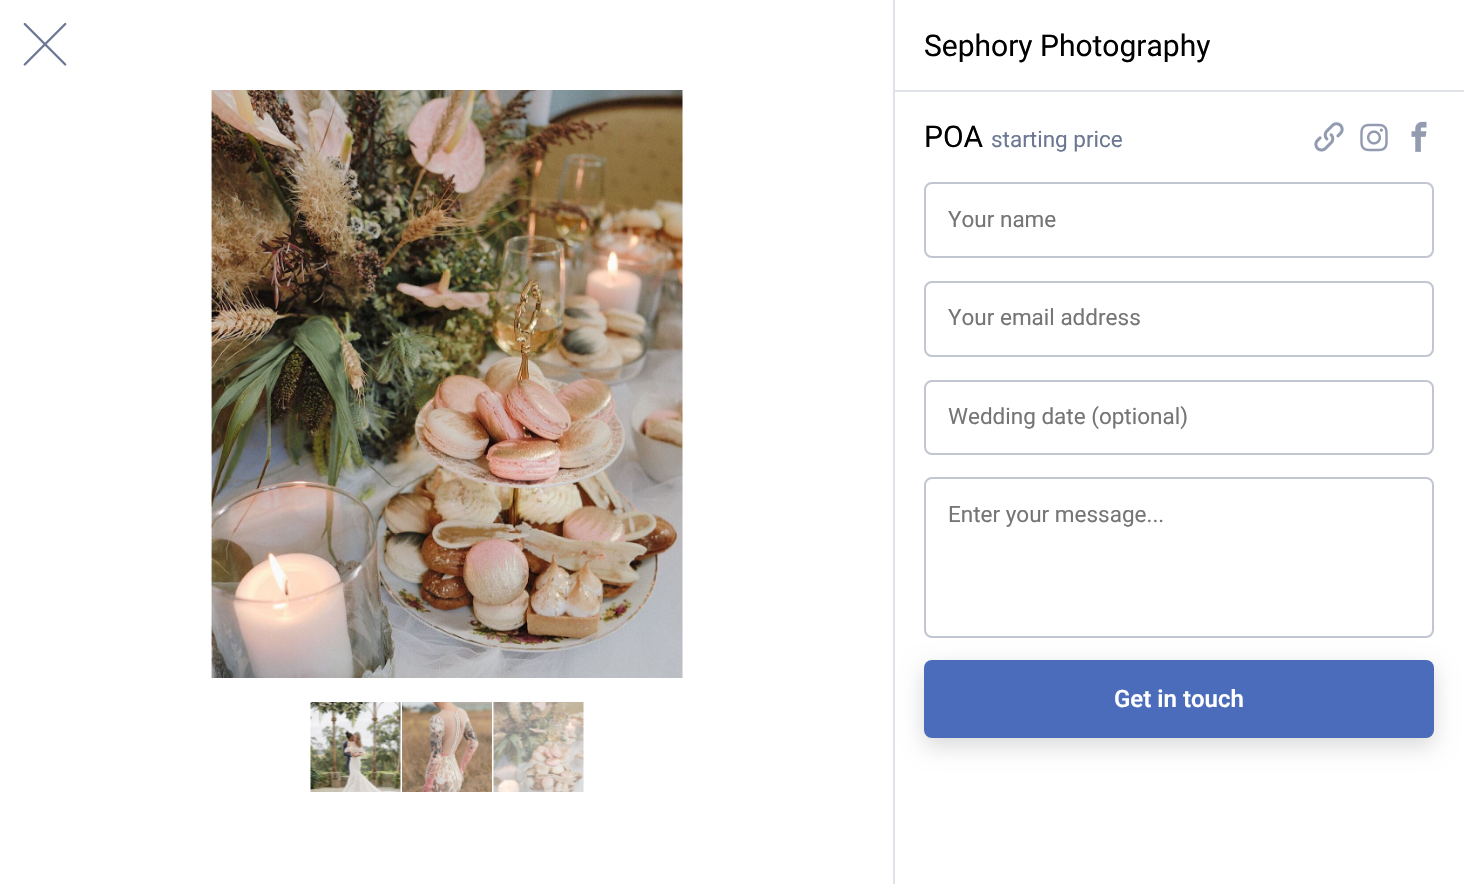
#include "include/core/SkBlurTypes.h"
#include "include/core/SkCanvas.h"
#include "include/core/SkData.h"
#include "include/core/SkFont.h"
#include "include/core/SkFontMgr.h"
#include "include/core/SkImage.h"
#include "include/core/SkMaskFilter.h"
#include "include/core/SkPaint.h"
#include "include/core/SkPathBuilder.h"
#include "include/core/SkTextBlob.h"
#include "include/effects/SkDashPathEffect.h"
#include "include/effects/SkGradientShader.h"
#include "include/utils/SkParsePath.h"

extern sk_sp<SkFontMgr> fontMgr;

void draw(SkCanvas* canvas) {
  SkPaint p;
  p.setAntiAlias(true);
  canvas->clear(SK_ColorWHITE);
  p.setColor(SkColorSetRGB(223, 226, 232));
  canvas->drawRect(SkRect::MakeLTRB(893, 0, 895, 884), p);
  canvas->drawImageRect(SkImages::DeferredFromEncodedData(SkData::MakeFromFileName("images/1.png")), SkRect::MakeLTRB(23, 22, 67, 66), SkSamplingOptions());
  canvas->drawImageRect(SkImages::DeferredFromEncodedData(SkData::MakeFromFileName("images/2.png")), SkRect::MakeLTRB(210, 90, 683, 678), SkSamplingOptions());
  canvas->drawImageRect(SkImages::DeferredFromEncodedData(SkData::MakeFromFileName("images/3.png")), SkRect::MakeLTRB(310, 702, 401, 792), SkSamplingOptions());
  canvas->drawImageRect(SkImages::DeferredFromEncodedData(SkData::MakeFromFileName("images/4.png")), SkRect::MakeLTRB(402, 702, 492, 792), SkSamplingOptions());
  canvas->drawImageRect(SkImages::DeferredFromEncodedData(SkData::MakeFromFileName("images/5.png")), SkRect::MakeLTRB(493, 702, 584, 792), SkSamplingOptions());
  canvas->drawRect(SkRect::MakeLTRB(894, 90, 1464, 92), p);
  canvas->drawImageRect(SkImages::DeferredFromEncodedData(SkData::MakeFromFileName("images/6.png")), SkRect::MakeLTRB(1314, 122, 1344, 152), SkSamplingOptions());
  canvas->drawImageRect(SkImages::DeferredFromEncodedData(SkData::MakeFromFileName("images/7.png")), SkRect::MakeLTRB(1360, 123, 1388, 152), SkSamplingOptions());
  canvas->drawImageRect(SkImages::DeferredFromEncodedData(SkData::MakeFromFileName("images/8.png")), SkRect::MakeLTRB(1411, 121, 1427, 152), SkSamplingOptions());
  p.setStyle(SkPaint::kStroke_Style);
  p.setStrokeWidth(2);
  p.setColor(SkColorSetRGB(193, 198, 209));
  canvas->drawRoundRect(SkRect::MakeLTRB(925, 183, 1433, 257), 7, 7, p);
  canvas->drawRoundRect(SkRect::MakeLTRB(925, 282, 1433, 356), 7, 7, p);
  canvas->drawRoundRect(SkRect::MakeLTRB(925, 381, 1433, 454), 7, 7, p);
  p.setStyle(SkPaint::kFill_Style);
  p.setColor(SkColorSetARGB(38, 0, 0, 0));
  p.setMaskFilter(SkMaskFilter::MakeBlur(kNormal_SkBlurStyle, 11));
  canvas->drawRoundRect(SkRect::MakeLTRB(924, 668, 1434, 746), 8, 8, p);
  p.setMaskFilter(nullptr);
  p.setStyle(SkPaint::kStroke_Style);
  p.setColor(SkColorSetRGB(193, 198, 209));
  canvas->drawRoundRect(SkRect::MakeLTRB(925, 478, 1433, 637), 7, 7, p);
  p.setStyle(SkPaint::kFill_Style);
  p.setColor(SkColorSetRGB(75, 108, 186));
  canvas->drawRoundRect(SkRect::MakeLTRB(924, 660, 1434, 738), 8, 8, p);
  SkFont font1(fontMgr->matchFamilyStyle("Roboto", SkFontStyle::Normal()), 30);
  font1.setSubpixel(true);
  p.setColor(SK_ColorBLACK);
  canvas->drawString("Sephory Photography", 924, 56, font1, p);
  canvas->drawString("POA", 924, 147, font1, p);
  SkFont font2(fontMgr->matchFamilyStyle("Roboto", SkFontStyle::Normal()), 22.5f);
  font2.setSubpixel(true);
  p.setColor(SkColorSetRGB(108, 120, 147));
  canvas->drawString("starting price", 991, 147, font2, p);
  p.setColor(SkColorSetRGB(117, 117, 117));
  canvas->drawString("Your name", 948, 227, font2, p);
  canvas->drawString("Your email address", 948, 325, font2, p);
  canvas->drawString("Wedding date (optional)", 948, 424, font2, p);
  canvas->drawString("Enter your message...", 948, 522, font2, p);
  SkFont font3(fontMgr->matchFamilyStyle("Roboto", SkFontStyle(600, SkFontStyle::kNormal_Width, SkFontStyle::kUpright_Slant)), 24);
  font3.setSubpixel(true);
  p.setColor(SK_ColorWHITE);
  canvas->drawString("Get in touch", 1114, 707, font3, p);
}
